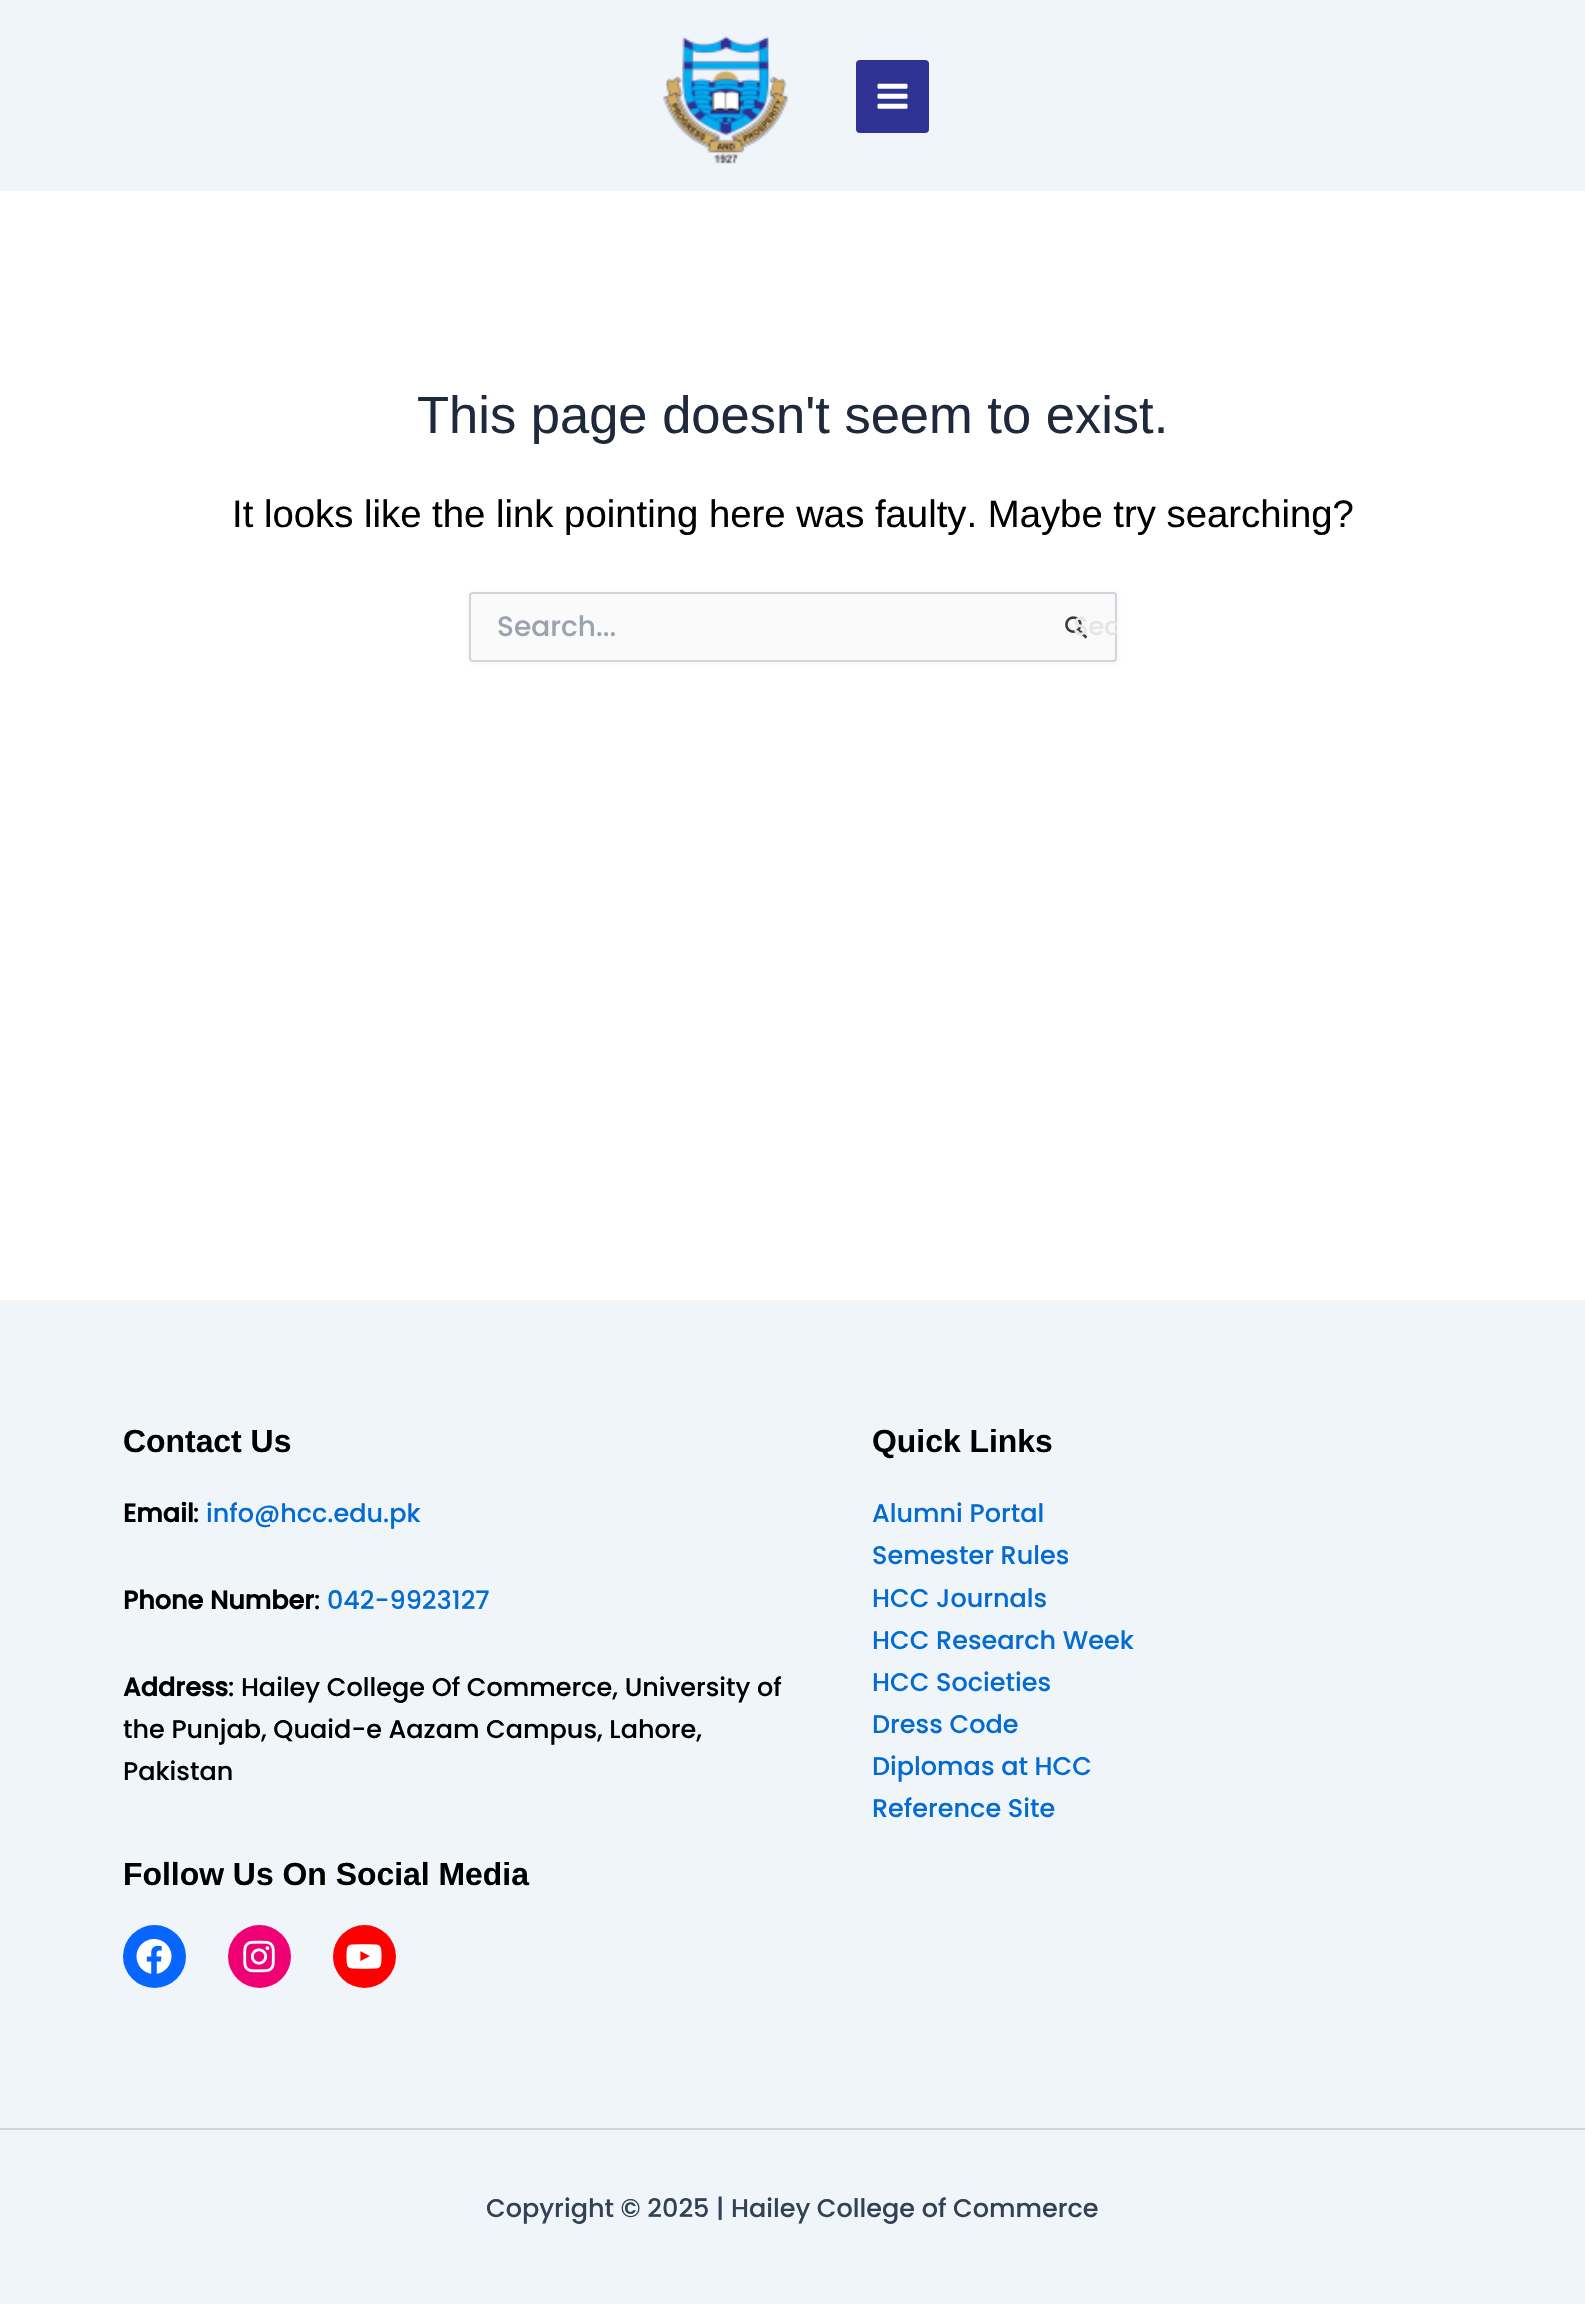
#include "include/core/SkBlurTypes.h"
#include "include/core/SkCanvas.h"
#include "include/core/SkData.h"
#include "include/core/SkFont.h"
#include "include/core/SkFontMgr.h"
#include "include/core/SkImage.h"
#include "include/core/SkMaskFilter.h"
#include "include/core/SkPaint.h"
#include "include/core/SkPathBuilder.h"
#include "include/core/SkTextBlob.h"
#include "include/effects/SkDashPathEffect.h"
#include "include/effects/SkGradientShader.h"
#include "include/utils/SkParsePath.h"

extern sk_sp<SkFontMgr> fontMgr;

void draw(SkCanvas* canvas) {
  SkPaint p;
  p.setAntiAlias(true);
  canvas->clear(SK_ColorWHITE);
  p.setColor(SkColorSetRGB(240, 245, 250));
  canvas->drawRect(SkRect::MakeLTRB(0, 0, 1585, 191), p);
  canvas->drawImageRect(SkImages::DeferredFromEncodedData(SkData::MakeFromFileName("images/1.png")), SkRect::MakeLTRB(663, 36, 789, 164), SkSamplingOptions());
  p.setColor(SkColorSetRGB(47, 49, 147));
  canvas->drawRoundRect(SkRect::MakeLTRB(856, 60, 929, 133), 4, 4, p);
  canvas->drawImageRect(SkImages::DeferredFromEncodedData(SkData::MakeFromFileName("images/2.png")), SkRect::MakeLTRB(877, 83, 908, 109), SkSamplingOptions());
  p.setColor(SkColorSetARGB(13, 0, 0, 0));
  p.setMaskFilter(SkMaskFilter::MakeBlur(kNormal_SkBlurStyle, 2));
  canvas->drawRoundRect(SkRect::MakeLTRB(469, 593, 1117, 663), 4, 4, p);
  p.setMaskFilter(nullptr);
  p.setColor(SkColorSetRGB(250, 250, 250));
  canvas->drawRoundRect(SkRect::MakeLTRB(470, 593, 1116, 661), 3, 3, p);
  p.setStyle(SkPaint::kStroke_Style);
  p.setStrokeWidth(2);
  p.setColor(SkColorSetRGB(209, 213, 219));
  canvas->drawRoundRect(SkRect::MakeLTRB(470, 593, 1116, 661), 3, 3, p);
  canvas->drawImageRect(SkImages::DeferredFromEncodedData(SkData::MakeFromFileName("images/3.png")), SkRect::MakeLTRB(1065, 616, 1087, 639), SkSamplingOptions());
  p.setStyle(SkPaint::kFill_Style);
  p.setColor(SkColorSetRGB(240, 245, 250));
  canvas->drawRect(SkRect::MakeLTRB(0, 1300, 1585, 2304), p);
  p.setColor(SkColorSetRGB(8, 102, 255));
  canvas->drawCircle(154.5f, 1956.5f, 31.5f, p);
  canvas->drawImageRect(SkImages::DeferredFromEncodedData(SkData::MakeFromFileName("images/4.png")), SkRect::MakeLTRB(136, 1939, 172, 1974), SkSamplingOptions());
  p.setColor(SkColorSetRGB(240, 0, 117));
  canvas->drawCircle(259.5f, 1956.5f, 31.5f, p);
  canvas->drawImageRect(SkImages::DeferredFromEncodedData(SkData::MakeFromFileName("images/5.png")), SkRect::MakeLTRB(243, 1940, 275, 1973), SkSamplingOptions());
  p.setColor(SkColorSetRGB(255, 0, 0));
  canvas->drawCircle(364.5f, 1956.5f, 31.5f, p);
  canvas->drawImageRect(SkImages::DeferredFromEncodedData(SkData::MakeFromFileName("images/6.png")), SkRect::MakeLTRB(346, 1944, 382, 1969), SkSamplingOptions());
  p.setColor(SkColorSetRGB(209, 213, 219));
  canvas->drawRect(SkRect::MakeLTRB(0, 2128, 1585, 2130), p);
  SkFont font1(fontMgr->matchFamilyStyle("Liberation Sans", SkFontStyle::Normal()), 52.5f);
  font1.setSubpixel(true);
  p.setColor(SkColorSetRGB(30, 41, 59));
  canvas->drawString("This page doesn't seem to exist.", 417, 433, font1, p);
  SkFont font2(fontMgr->matchFamilyStyle("Liberation Sans", SkFontStyle::Normal()), 38.3f);
  font2.setSubpixel(true);
  p.setColor(SK_ColorBLACK);
  canvas->drawString("It looks like the link pointing here was faulty. Maybe try searching?", 232, 527, font2, p);
  SkFont font3(fontMgr->matchFamilyStyle("Poppins", SkFontStyle(500, SkFontStyle::kNormal_Width, SkFontStyle::kUpright_Slant)), 28);
  font3.setSubpixel(true);
  p.setColor(SkColorSetRGB(156, 163, 175));
  canvas->drawString("Search...", 497, 636, font3, p);
  canvas->save();
  canvas->clipPath(SkPathBuilder().moveTo(1042, 592).lineTo(1113, 592).cubicTo(1115, 592, 1117, 594, 1117, 596).lineTo(1117, 658).cubicTo(1117, 660, 1115, 662, 1113, 662).lineTo(1042, 662).cubicTo(1040, 662, 1038, 660, 1038, 658).lineTo(1038, 596).cubicTo(1038, 594, 1040, 592, 1042, 592).close().detach(), true);
  SkFont font4(fontMgr->matchFamilyStyle("Poppins", SkFontStyle(500, SkFontStyle::kNormal_Width, SkFontStyle::kUpright_Slant)), 25.5f);
  font4.setSubpixel(true);
  p.setColor(SkColorSetRGB(229, 230, 230));
  canvas->drawString("Sea", 1073, 635, font4, p);
  canvas->restore();
  SkFont font5(fontMgr->matchFamilyStyle("Liberation Sans", SkFontStyle::Bold()), 31.9f);
  font5.setSubpixel(true);
  p.setColor(SK_ColorBLACK);
  canvas->drawString("Contact Us", 123, 1452, font5, p);
  SkFont font6(fontMgr->matchFamilyStyle("Poppins", SkFontStyle::Bold()), 25.5f);
  font6.setSubpixel(true);
  canvas->drawString("Email", 123, 1522, font6, p);
  canvas->drawString(":", 193, 1522, font4, p);
  p.setColor(SkColorSetRGB(4, 107, 210));
  canvas->drawString("info@hcc.edu.pk", 206, 1522, font4, p);
  p.setColor(SK_ColorBLACK);
  canvas->drawString("Phone Number", 123, 1609, font6, p);
  canvas->drawString(":", 314, 1609, font4, p);
  p.setColor(SkColorSetRGB(4, 107, 210));
  canvas->drawString("042-9923127", 327, 1609, font4, p);
  p.setColor(SK_ColorBLACK);
  canvas->drawString("Address", 123, 1696, font6, p);
  canvas->drawString(": Hailey College Of Commerce, University of", 228, 1696, font4, p);
  canvas->drawString("the Punjab, Quaid-e Aazam Campus, Lahore,", 123, 1738, font4, p);
  canvas->drawString("Pakistan", 123, 1780, font4, p);
  canvas->drawString("Quick Links", 872, 1452, font5, p);
  p.setColor(SkColorSetRGB(4, 107, 210));
  canvas->drawString("Alumni Portal", 872, 1522, font4, p);
  canvas->drawString("Semester Rules", 872, 1564, font4, p);
  canvas->drawString("HCC Journals", 872, 1607, font4, p);
  canvas->drawString("HCC Research Week", 872, 1649, font4, p);
  canvas->drawString("HCC Societies", 872, 1691, font4, p);
  canvas->drawString("Dress Code", 872, 1733, font4, p);
  canvas->drawString("Diplomas at HCC", 872, 1775, font4, p);
  canvas->drawString("Reference Site", 872, 1817, font4, p);
  p.setColor(SK_ColorBLACK);
  canvas->drawString("Follow Us On Social Media", 123, 1885, font5, p);
  p.setColor(SkColorSetRGB(51, 65, 85));
  canvas->drawString("Copyright © 2025 | Hailey College of Commerce", 486, 2217, font4, p);
}
